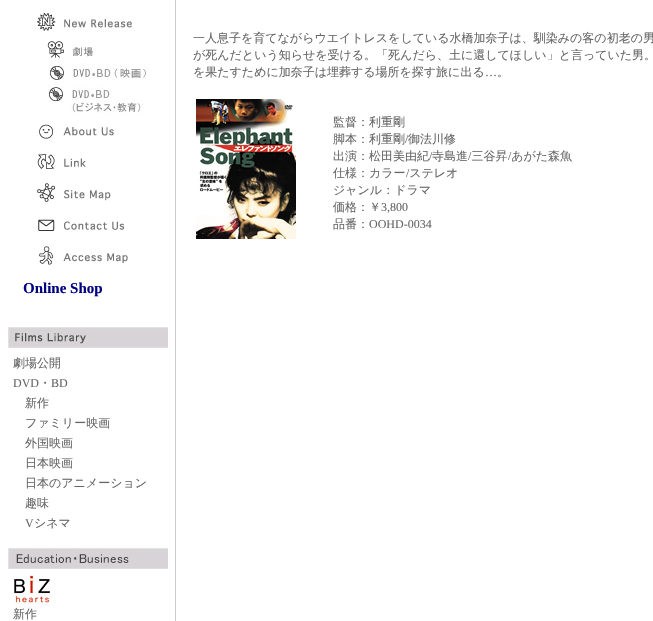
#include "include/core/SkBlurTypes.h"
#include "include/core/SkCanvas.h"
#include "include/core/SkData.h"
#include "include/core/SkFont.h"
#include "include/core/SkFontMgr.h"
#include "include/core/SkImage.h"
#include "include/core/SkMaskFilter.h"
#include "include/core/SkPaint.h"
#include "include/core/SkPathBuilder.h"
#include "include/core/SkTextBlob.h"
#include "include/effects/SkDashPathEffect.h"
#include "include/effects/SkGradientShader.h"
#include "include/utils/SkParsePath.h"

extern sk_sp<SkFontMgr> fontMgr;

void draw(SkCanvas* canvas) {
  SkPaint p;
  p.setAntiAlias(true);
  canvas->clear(SK_ColorWHITE);
  p.setColor(SkColorSetRGB(204, 204, 204));
  canvas->drawRect(SkRect::MakeLTRB(175, 0, 176, 621), p);
  canvas->drawImageRect(SkImages::DeferredFromEncodedData(SkData::MakeFromFileName("images/1.png")), SkRect::MakeLTRB(196, 99, 296, 239), SkSamplingOptions());
  canvas->drawImageRect(SkImages::DeferredFromEncodedData(SkData::MakeFromFileName("images/2.png")), SkRect::MakeLTRB(37, 13, 132, 31), SkSamplingOptions());
  canvas->drawImageRect(SkImages::DeferredFromEncodedData(SkData::MakeFromFileName("images/3.png")), SkRect::MakeLTRB(47, 41, 93, 58), SkSamplingOptions());
  canvas->drawImageRect(SkImages::DeferredFromEncodedData(SkData::MakeFromFileName("images/4.png")), SkRect::MakeLTRB(49, 63, 148, 80), SkSamplingOptions());
  canvas->drawImageRect(SkImages::DeferredFromEncodedData(SkData::MakeFromFileName("images/5.png")), SkRect::MakeLTRB(48, 85, 141, 114), SkSamplingOptions());
  canvas->drawImageRect(SkImages::DeferredFromEncodedData(SkData::MakeFromFileName("images/6.png")), SkRect::MakeLTRB(39, 124, 114, 139), SkSamplingOptions());
  canvas->drawImageRect(SkImages::DeferredFromEncodedData(SkData::MakeFromFileName("images/7.png")), SkRect::MakeLTRB(37, 154, 86, 169), SkSamplingOptions());
  canvas->drawImageRect(SkImages::DeferredFromEncodedData(SkData::MakeFromFileName("images/8.png")), SkRect::MakeLTRB(37, 183, 111, 202), SkSamplingOptions());
  canvas->drawImageRect(SkImages::DeferredFromEncodedData(SkData::MakeFromFileName("images/9.png")), SkRect::MakeLTRB(38, 219, 125, 231), SkSamplingOptions());
  canvas->drawImageRect(SkImages::DeferredFromEncodedData(SkData::MakeFromFileName("images/10.png")), SkRect::MakeLTRB(39, 246, 128, 265), SkSamplingOptions());
  canvas->drawImageRect(SkImages::DeferredFromEncodedData(SkData::MakeFromFileName("images/11.png")), SkRect::MakeLTRB(8, 327, 168, 348), SkSamplingOptions());
  canvas->drawImageRect(SkImages::DeferredFromEncodedData(SkData::MakeFromFileName("images/12.png")), SkRect::MakeLTRB(8, 548, 168, 569), SkSamplingOptions());
  canvas->drawImageRect(SkImages::DeferredFromEncodedData(SkData::MakeFromFileName("images/13.png")), SkRect::MakeLTRB(14, 575, 50, 603), SkSamplingOptions());
  SkFont font1(fontMgr->matchFamilyStyle("WenQuanYi Zen Hei", SkFontStyle(500, SkFontStyle::kNormal_Width, SkFontStyle::kUpright_Slant)), 12);
  font1.setSubpixel(true);
  p.setColor(SkColorSetRGB(102, 102, 102));
  canvas->drawString("一人息子を育てながらウエイトレスをしている水橋加奈子は、馴染みの客の初老の男", 193, 42, font1, p);
  canvas->drawString("が死んだという知らせを受ける。「死んだら、土に還してほしい」と言っていた男。", 193, 59, font1, p);
  canvas->drawString("を果たすために加奈子は埋葬する場所を探す旅に出る", 193, 76, font1, p);
  SkFont font2(fontMgr->matchFamilyStyle("Liberation Serif", SkFontStyle::Normal()), 12);
  font2.setSubpixel(true);
  canvas->drawString("…", 485, 76, font2, p);
  canvas->drawString("。", 497, 76, font1, p);
  canvas->drawString("監督：利重剛", 333, 126, font1, p);
  canvas->drawString("脚本：利重剛", 333, 143, font1, p);
  canvas->drawString("/", 405, 143, font2, p);
  canvas->drawString("御法川修", 408, 143, font1, p);
  canvas->drawString("出演：松田美由紀", 333, 160, font1, p);
  canvas->drawString("/", 429, 160, font2, p);
  canvas->drawString("寺島進 三谷昇 あがた森魚", 432, 160, font1, p);
  canvas->drawString("/", 468, 160, font2, p);
  canvas->drawString("/", 508, 160, font2, p);
  canvas->drawString("仕様：カラー ステレオ", 333, 177, font1, p);
  canvas->drawString("/", 406, 177, font2, p);
  canvas->drawString("ジャンル：ドラマ", 333, 194, font1, p);
  canvas->drawString("価格：￥", 333, 211, font1, p);
  canvas->drawString("3,800", 381, 211, font2, p);
  canvas->drawString("品番：", 333, 228, font1, p);
  canvas->drawString("OOHD-0034", 369, 228, font2, p);
  SkFont font3(fontMgr->matchFamilyStyle("Liberation Serif", SkFontStyle::Bold()), 15);
  font3.setSubpixel(true);
  p.setColor(SkColorSetRGB(0, 0, 128));
  canvas->drawString("Online Shop", 23, 293, font3, p);
  p.setColor(SkColorSetRGB(102, 102, 102));
  canvas->drawString("劇場公開", 13, 367, font1, p);
  canvas->drawString("DVD", 13, 387, font2, p);
  canvas->drawString("・", 39, 387, font1, p);
  canvas->drawString("BD", 51, 387, font2, p);
  canvas->drawString("新作", 25, 407, font1, p);
  canvas->drawString("ファミリー映画", 25, 427, font1, p);
  canvas->drawString("外国映画", 25, 447, font1, p);
  canvas->drawString("日本映画", 25, 467, font1, p);
  canvas->drawString("日本のアニメーション", 25, 487, font1, p);
  canvas->drawString("趣味", 25, 507, font1, p);
  canvas->drawString("V", 25, 527, font2, p);
  canvas->drawString("シネマ", 34, 527, font1, p);
  canvas->drawString("新作", 13, 618, font1, p);
}
